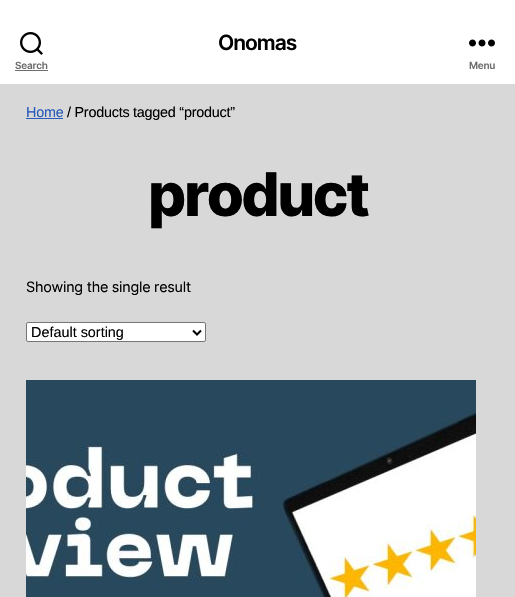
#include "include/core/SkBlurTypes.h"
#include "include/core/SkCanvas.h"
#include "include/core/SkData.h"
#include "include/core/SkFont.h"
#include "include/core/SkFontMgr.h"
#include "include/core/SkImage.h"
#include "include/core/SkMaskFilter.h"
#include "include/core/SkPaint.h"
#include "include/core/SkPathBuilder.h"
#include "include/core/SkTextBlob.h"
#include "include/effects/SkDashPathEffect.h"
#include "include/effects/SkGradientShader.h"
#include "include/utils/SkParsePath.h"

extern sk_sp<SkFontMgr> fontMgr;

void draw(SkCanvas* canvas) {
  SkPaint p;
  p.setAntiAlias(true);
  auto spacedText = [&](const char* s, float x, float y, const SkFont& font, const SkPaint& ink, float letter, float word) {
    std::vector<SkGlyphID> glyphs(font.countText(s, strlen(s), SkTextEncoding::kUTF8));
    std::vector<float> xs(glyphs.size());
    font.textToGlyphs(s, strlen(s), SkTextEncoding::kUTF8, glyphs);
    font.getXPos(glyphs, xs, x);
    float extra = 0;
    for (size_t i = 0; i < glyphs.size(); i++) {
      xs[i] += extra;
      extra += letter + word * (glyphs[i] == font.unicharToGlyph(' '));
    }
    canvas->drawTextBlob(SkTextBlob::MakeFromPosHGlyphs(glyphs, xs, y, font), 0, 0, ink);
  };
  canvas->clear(SkColorSetRGB(216, 216, 216));
  p.setColor(SK_ColorWHITE);
  canvas->drawRect(SkRect::MakeLTRB(0, 0, 515, 84), p);
  canvas->drawImageRect(SkImages::DeferredFromEncodedData(SkData::MakeFromFileName("images/1.png")), SkRect::MakeLTRB(20, 32, 43, 55), SkSamplingOptions());
  p.setColor(SkColorSetRGB(109, 109, 109));
  canvas->drawRect(SkRect::MakeLTRB(15, 70, 48, 71), p);
  canvas->drawImageRect(SkImages::DeferredFromEncodedData(SkData::MakeFromFileName("images/2.png")), SkRect::MakeLTRB(469, 39, 495, 47), SkSamplingOptions());
  p.setColor(SkColorSetRGB(39, 90, 185));
  canvas->drawRect(SkRect::MakeLTRB(26, 118, 63, 119), p);
  p.setColor(SK_ColorWHITE);
  canvas->drawRoundRect(SkRect::MakeLTRB(26.5f, 322.5f, 205.5f, 341.5f), 1.5f, 1.5f, p);
  p.setStyle(SkPaint::kStroke_Style);
  p.setStrokeWidth(1);
  p.setColor(SkColorSetRGB(118, 118, 118));
  canvas->drawRoundRect(SkRect::MakeLTRB(26.5f, 322.5f, 205.5f, 341.5f), 1.5f, 1.5f, p);
  p.setStrokeWidth(2);
  p.setColor(SK_ColorBLACK);
  canvas->drawPath(SkPathBuilder().moveTo(193, 330.5f).lineTo(197, 334.5f).lineTo(201, 330.5f).detach(), p);
  canvas->drawImageRect(SkImages::DeferredFromEncodedData(SkData::MakeFromFileName("images/3.png")), SkRect::MakeLTRB(26, 380, 476, 597), SkSamplingOptions());
  SkFont font1(fontMgr->matchFamilyStyle("Inter", SkFontStyle(600, SkFontStyle::kNormal_Width, SkFontStyle::kUpright_Slant)), 21);
  font1.setSubpixel(true);
  p.setStyle(SkPaint::kFill_Style);
  spacedText("Onomas", 218, 50, font1, p, -1, 0);
  SkFont font2(fontMgr->matchFamilyStyle("Inter", SkFontStyle(600, SkFontStyle::kNormal_Width, SkFontStyle::kUpright_Slant)), 10);
  font2.setSubpixel(true);
  p.setColor(SkColorSetRGB(109, 109, 109));
  spacedText("Search", 15, 69, font2, p, -0.25f, 0);
  spacedText("Menu", 469, 69, font2, p, -0.25f, 0);
  SkFont font3(fontMgr->matchFamilyStyle("Liberation Sans", SkFontStyle::Normal()), 14.4f);
  font3.setSubpixel(true);
  p.setColor(SkColorSetRGB(39, 90, 185));
  spacedText("Home", 26, 117, font3, p, -0.25f, 0);
  p.setColor(SK_ColorBLACK);
  spacedText("/ Products tagged “product”", 67, 117, font3, p, -0.25f, 0);
  SkFont font4(fontMgr->matchFamilyStyle("Inter", SkFontStyle(800, SkFontStyle::kNormal_Width, SkFontStyle::kUpright_Slant)), 60);
  font4.setSubpixel(true);
  spacedText("product", 148, 216, font4, p, -2.5f, 0);
  SkFont font5(fontMgr->matchFamilyStyle("Inter", SkFontStyle::Normal()), 14.4f);
  font5.setSubpixel(true);
  spacedText("Showing the single result", 26, 292, font5, p, -0.25f, 0);
  canvas->drawString("Default sorting", 31, 337, font3, p);
}
